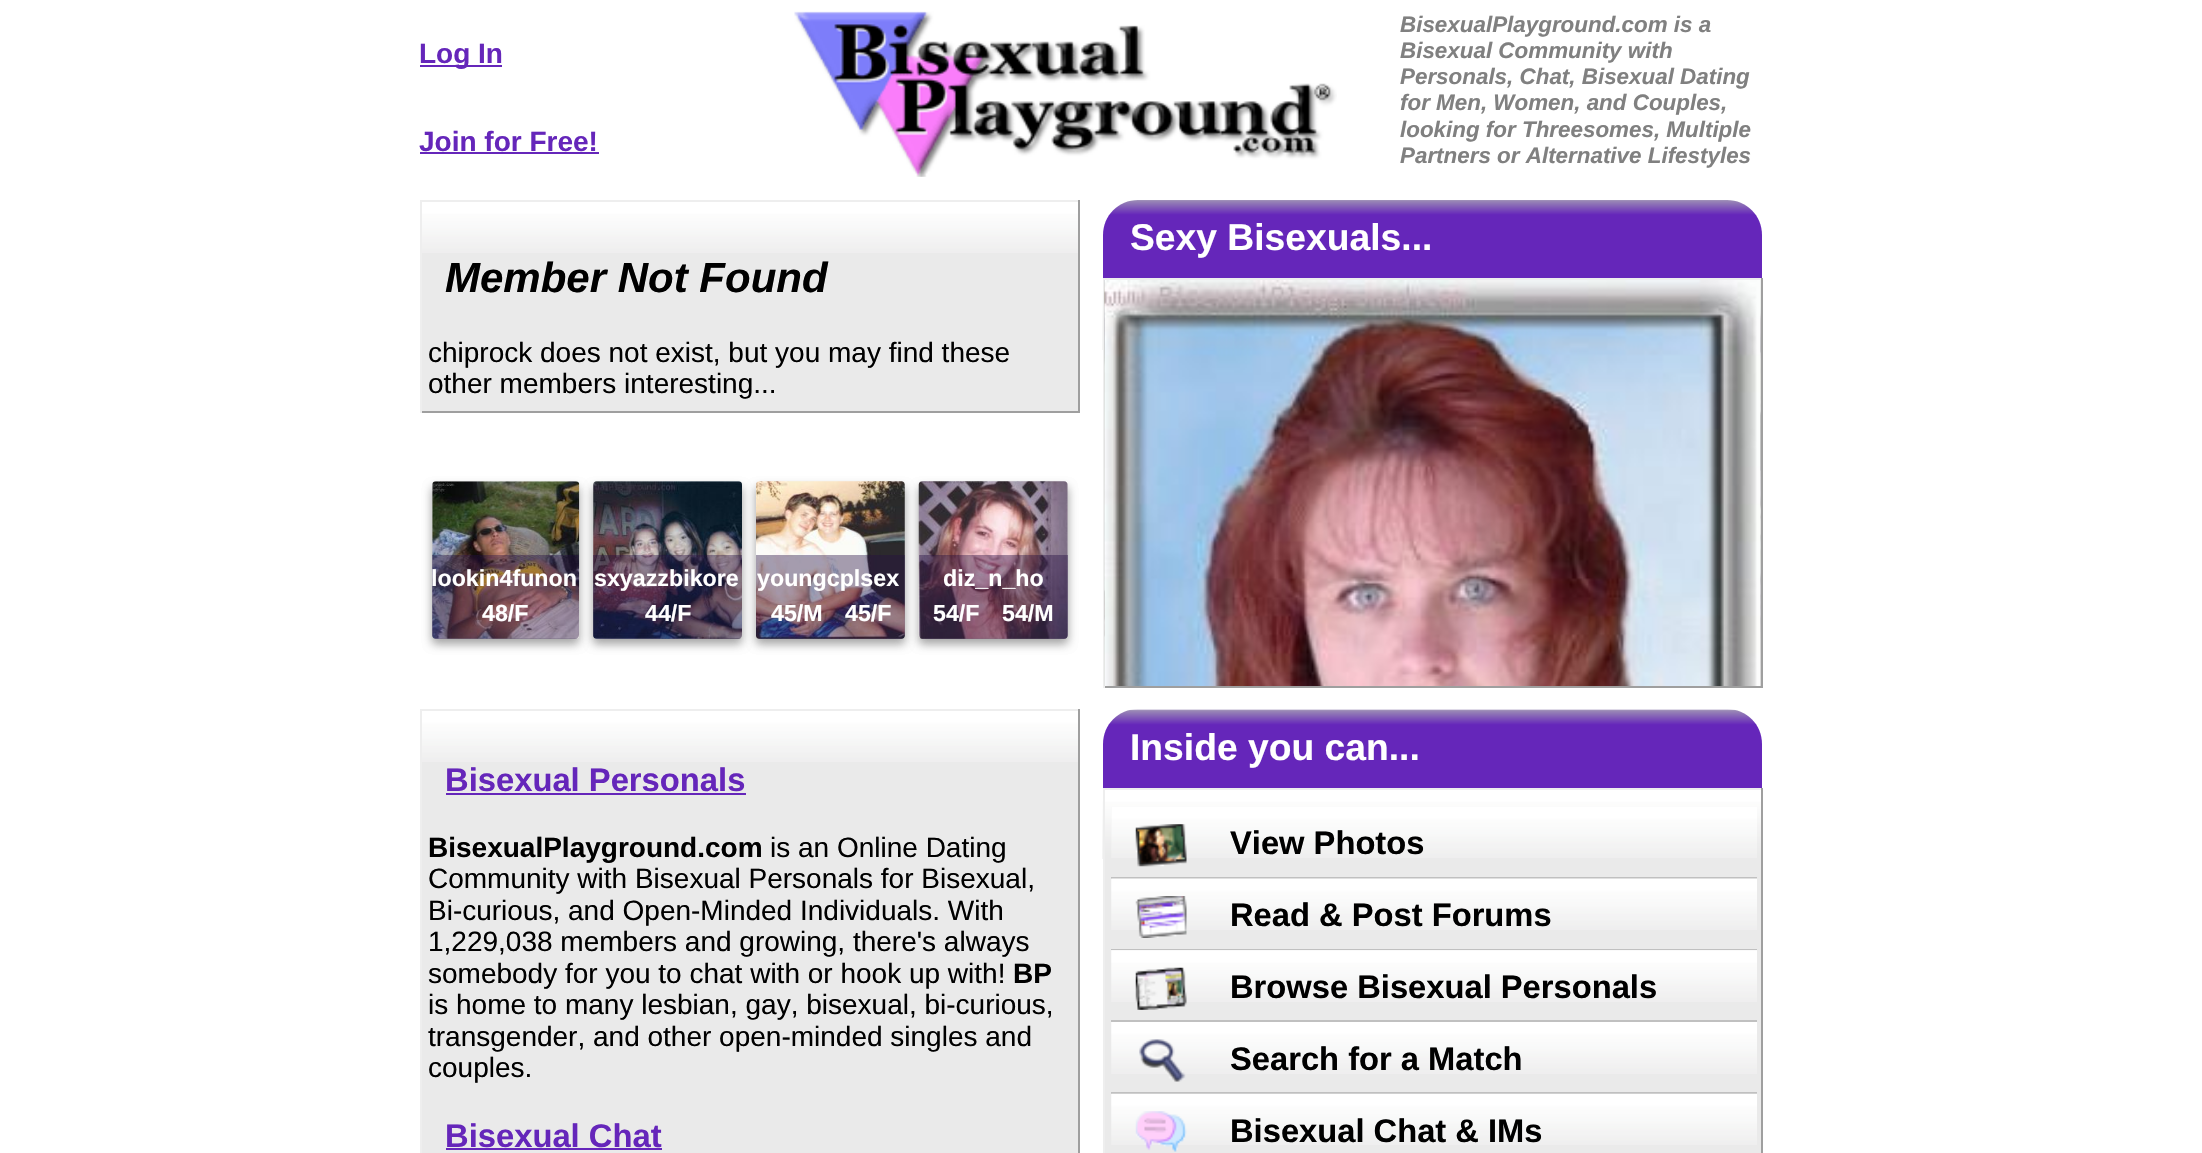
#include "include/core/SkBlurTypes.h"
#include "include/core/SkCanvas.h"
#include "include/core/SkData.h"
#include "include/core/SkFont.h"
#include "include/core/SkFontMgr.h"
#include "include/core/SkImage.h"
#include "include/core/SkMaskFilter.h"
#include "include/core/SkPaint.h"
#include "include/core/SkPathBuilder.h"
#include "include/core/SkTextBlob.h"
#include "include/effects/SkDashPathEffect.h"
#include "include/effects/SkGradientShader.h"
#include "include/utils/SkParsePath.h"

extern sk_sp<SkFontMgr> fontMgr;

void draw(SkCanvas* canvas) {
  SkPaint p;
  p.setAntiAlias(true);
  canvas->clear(SK_ColorWHITE);
  p.setColor(SkColorSetRGB(101, 38, 186));
  canvas->drawRect(SkRect::MakeLTRB(420, 65, 502, 67), p);
  canvas->drawRect(SkRect::MakeLTRB(420, 152, 599, 154), p);
  canvas->drawImageRect(SkImages::DeferredFromEncodedData(SkData::MakeFromFileName("images/1.png")), SkRect::MakeLTRB(794, 11, 1337, 177), SkSamplingOptions());
  {
    const SkColor colors[] = {SK_ColorWHITE, SkColorSetRGB(154, 137, 181), SkColorSetRGB(101, 38, 186)};
    const float stops[] = {0, 0.02f, 0.2f};
    const SkPoint ends[] = {{1432, 199}, {1432, 278}};
    p.setShader(SkGradientShader::MakeLinear(ends, colors, stops, 3, SkTileMode::kClamp));
    p.setAlpha(255);
  }
  canvas->drawPath(SkPathBuilder().moveTo(1138, 200).lineTo(1727, 200).cubicTo(1746.5f, 200, 1762, 215.5f, 1762, 235).lineTo(1762, 278).lineTo(1103, 278).lineTo(1103, 235).cubicTo(1103, 215.5f, 1118.5f, 200, 1138, 200).close().detach(), p);
  p.setShader(nullptr);
  p.setColor(SkColorSetRGB(234, 234, 234));
  canvas->drawRect(SkRect::MakeLTRB(1760, 350, 1761, 686), p);
  canvas->drawImageRect(SkImages::DeferredFromEncodedData(SkData::MakeFromFileName("images/2.png")), SkRect::MakeLTRB(1102, 280, 1761, 350), SkSamplingOptions());
  p.setColor(SkColorSetRGB(238, 238, 238));
  canvas->drawRect(SkRect::MakeLTRB(1103, 278, 1762, 280), p);
  p.setColor(SkColorSetRGB(159, 159, 159));
  canvas->drawRect(SkRect::MakeLTRB(1761, 278, 1763, 688), p);
  canvas->drawRect(SkRect::MakeLTRB(1103, 686, 1762, 688), p);
  p.setColor(SkColorSetRGB(238, 238, 238));
  canvas->drawRect(SkRect::MakeLTRB(1103, 278, 1105, 688), p);
  canvas->drawImageRect(SkImages::DeferredFromEncodedData(SkData::MakeFromFileName("images/3.png")), SkRect::MakeLTRB(1104, 280, 1761, 686), SkSamplingOptions());
  canvas->drawImageRect(SkImages::DeferredFromEncodedData(SkData::MakeFromFileName("images/4.png")), SkRect::MakeLTRB(1104, 280, 1761, 686), SkSamplingOptions());
  p.setColor(SkColorSetRGB(234, 234, 234));
  canvas->drawRect(SkRect::MakeLTRB(422, 253, 1078, 411), p);
  canvas->drawImageRect(SkImages::DeferredFromEncodedData(SkData::MakeFromFileName("images/5.png")), SkRect::MakeLTRB(422, 202, 1078, 253), SkSamplingOptions());
  p.setColor(SkColorSetRGB(238, 238, 238));
  canvas->drawRect(SkRect::MakeLTRB(420, 200, 1080, 202), p);
  p.setColor(SkColorSetRGB(159, 159, 159));
  canvas->drawRect(SkRect::MakeLTRB(1078, 200, 1080, 413), p);
  canvas->drawRect(SkRect::MakeLTRB(420, 411, 1080, 413), p);
  p.setColor(SkColorSetRGB(238, 238, 238));
  canvas->drawRect(SkRect::MakeLTRB(420, 200, 422, 413), p);
  p.setColor(SkColorSetARGB(59, 0, 0, 0));
  p.setMaskFilter(SkMaskFilter::MakeBlur(kNormal_SkBlurStyle, 5));
  canvas->drawRoundRect(SkRect::MakeLTRB(432, 487, 579, 644), 4, 4, p);
  p.setMaskFilter(nullptr);
  p.setColor(SkColorSetARGB(41, 0, 0, 0));
  p.setMaskFilter(SkMaskFilter::MakeBlur(kNormal_SkBlurStyle, 5));
  canvas->drawRoundRect(SkRect::MakeLTRB(432, 487, 579, 644), 4, 4, p);
  p.setMaskFilter(nullptr);
  canvas->drawImageRect(SkImages::DeferredFromEncodedData(SkData::MakeFromFileName("images/6.png")), SkRect::MakeLTRB(432, 481, 580, 639), SkSamplingOptions());
  p.setColor(SkColorSetARGB(102, 35, 13, 66));
  canvas->drawPath(SkPathBuilder().moveTo(432, 555).lineTo(579, 555).lineTo(579, 635).cubicTo(579, 637, 577, 639, 575, 639).lineTo(436, 639).cubicTo(434, 639, 432, 637, 432, 635).close().detach(), p);
  p.setColor(SkColorSetARGB(59, 0, 0, 0));
  p.setMaskFilter(SkMaskFilter::MakeBlur(kNormal_SkBlurStyle, 5));
  canvas->drawRoundRect(SkRect::MakeLTRB(593, 487, 742, 644), 4, 4, p);
  p.setMaskFilter(nullptr);
  p.setColor(SkColorSetARGB(41, 0, 0, 0));
  p.setMaskFilter(SkMaskFilter::MakeBlur(kNormal_SkBlurStyle, 5));
  canvas->drawRoundRect(SkRect::MakeLTRB(593, 487, 742, 644), 4, 4, p);
  p.setMaskFilter(nullptr);
  canvas->drawImageRect(SkImages::DeferredFromEncodedData(SkData::MakeFromFileName("images/7.png")), SkRect::MakeLTRB(593, 481, 742, 639), SkSamplingOptions());
  p.setColor(SkColorSetARGB(102, 35, 13, 66));
  canvas->drawPath(SkPathBuilder().moveTo(593, 555).lineTo(742, 555).lineTo(742, 635).cubicTo(742, 637, 740, 639, 738, 639).lineTo(597, 639).cubicTo(595, 639, 593, 637, 593, 635).close().detach(), p);
  p.setColor(SkColorSetARGB(59, 0, 0, 0));
  p.setMaskFilter(SkMaskFilter::MakeBlur(kNormal_SkBlurStyle, 5));
  canvas->drawRoundRect(SkRect::MakeLTRB(756, 487, 905, 644), 4, 4, p);
  p.setMaskFilter(nullptr);
  p.setColor(SkColorSetARGB(41, 0, 0, 0));
  p.setMaskFilter(SkMaskFilter::MakeBlur(kNormal_SkBlurStyle, 5));
  canvas->drawRoundRect(SkRect::MakeLTRB(756, 487, 905, 644), 4, 4, p);
  p.setMaskFilter(nullptr);
  canvas->drawImageRect(SkImages::DeferredFromEncodedData(SkData::MakeFromFileName("images/8.png")), SkRect::MakeLTRB(756, 481, 905, 639), SkSamplingOptions());
  p.setColor(SkColorSetARGB(102, 35, 13, 66));
  canvas->drawPath(SkPathBuilder().moveTo(756, 555).lineTo(905, 555).lineTo(905, 635).cubicTo(905, 637, 903, 639, 901, 639).lineTo(760, 639).cubicTo(758, 639, 756, 637, 756, 635).close().detach(), p);
  p.setColor(SkColorSetARGB(59, 0, 0, 0));
  p.setMaskFilter(SkMaskFilter::MakeBlur(kNormal_SkBlurStyle, 5));
  canvas->drawRoundRect(SkRect::MakeLTRB(919, 487, 1068, 644), 4, 4, p);
  p.setMaskFilter(nullptr);
  p.setColor(SkColorSetARGB(41, 0, 0, 0));
  p.setMaskFilter(SkMaskFilter::MakeBlur(kNormal_SkBlurStyle, 5));
  canvas->drawRoundRect(SkRect::MakeLTRB(919, 487, 1068, 644), 4, 4, p);
  p.setMaskFilter(nullptr);
  canvas->drawImageRect(SkImages::DeferredFromEncodedData(SkData::MakeFromFileName("images/9.png")), SkRect::MakeLTRB(918, 481, 1068, 639), SkSamplingOptions());
  p.setColor(SkColorSetARGB(102, 35, 13, 66));
  canvas->drawPath(SkPathBuilder().moveTo(919, 555).lineTo(1068, 555).lineTo(1068, 635).cubicTo(1068, 637, 1066, 639, 1064, 639).lineTo(923, 639).cubicTo(921, 639, 919, 637, 919, 635).close().detach(), p);
  p.setColor(SkColorSetRGB(234, 234, 234));
  canvas->drawRect(SkRect::MakeLTRB(422, 762, 1078, 1153), p);
  canvas->drawImageRect(SkImages::DeferredFromEncodedData(SkData::MakeFromFileName("images/10.png")), SkRect::MakeLTRB(422, 711, 1078, 762), SkSamplingOptions());
  p.setColor(SkColorSetRGB(238, 238, 238));
  canvas->drawRect(SkRect::MakeLTRB(420, 709, 1080, 711), p);
  p.setColor(SkColorSetRGB(159, 159, 159));
  canvas->drawRect(SkRect::MakeLTRB(1078, 709, 1080, 1153), p);
  p.setColor(SkColorSetRGB(238, 238, 238));
  canvas->drawRect(SkRect::MakeLTRB(420, 709, 422, 1153), p);
  p.setColor(SkColorSetRGB(101, 38, 186));
  canvas->drawRect(SkRect::MakeLTRB(446, 793, 746, 795), p);
  canvas->drawRect(SkRect::MakeLTRB(446, 1148, 662, 1150), p);
  {
    const SkColor colors[] = {SK_ColorWHITE, SkColorSetRGB(154, 137, 181), SkColorSetRGB(101, 38, 186)};
    const float stops[] = {0, 0.02f, 0.2f};
    const SkPoint ends[] = {{1432, 709}, {1432, 788}};
    p.setShader(SkGradientShader::MakeLinear(ends, colors, stops, 3, SkTileMode::kClamp));
    p.setAlpha(255);
  }
  canvas->drawPath(SkPathBuilder().moveTo(1138, 709).lineTo(1727, 709).cubicTo(1746.5f, 709, 1762, 724.5f, 1762, 744).lineTo(1762, 788).lineTo(1103, 788).lineTo(1103, 744).cubicTo(1103, 724.5f, 1118.5f, 709, 1138, 709).close().detach(), p);
  p.setShader(nullptr);
  p.setColor(SkColorSetRGB(234, 234, 234));
  canvas->drawRect(SkRect::MakeLTRB(1105, 859, 1761, 1153), p);
  canvas->drawImageRect(SkImages::DeferredFromEncodedData(SkData::MakeFromFileName("images/11.png")), SkRect::MakeLTRB(1102, 789, 1761, 859), SkSamplingOptions());
  p.setColor(SkColorSetRGB(238, 238, 238));
  canvas->drawRect(SkRect::MakeLTRB(1103, 788, 1762, 790), p);
  p.setColor(SkColorSetRGB(159, 159, 159));
  canvas->drawRect(SkRect::MakeLTRB(1761, 788, 1763, 1153), p);
  p.setColor(SkColorSetRGB(238, 238, 238));
  canvas->drawRect(SkRect::MakeLTRB(1103, 788, 1105, 1153), p);
  p.setColor(SkColorSetRGB(234, 234, 234));
  canvas->drawRect(SkRect::MakeLTRB(1111, 807, 1757, 848), p);
  canvas->drawImageRect(SkImages::DeferredFromEncodedData(SkData::MakeFromFileName("images/12.png")), SkRect::MakeLTRB(1111, 807, 1757, 858), SkSamplingOptions());
  p.setColor(SkColorSetRGB(192, 192, 192));
  canvas->drawRect(SkRect::MakeLTRB(1111, 877, 1757, 879), p);
  canvas->drawImageRect(SkImages::DeferredFromEncodedData(SkData::MakeFromFileName("images/13.png")), SkRect::MakeLTRB(1135, 824, 1187, 867), SkSamplingOptions());
  canvas->drawImageRect(SkImages::DeferredFromEncodedData(SkData::MakeFromFileName("images/14.png")), SkRect::MakeLTRB(1111, 878, 1757, 930), SkSamplingOptions());
  canvas->drawRect(SkRect::MakeLTRB(1111, 949, 1757, 950), p);
  canvas->drawImageRect(SkImages::DeferredFromEncodedData(SkData::MakeFromFileName("images/15.png")), SkRect::MakeLTRB(1135, 896, 1187, 938), SkSamplingOptions());
  canvas->drawImageRect(SkImages::DeferredFromEncodedData(SkData::MakeFromFileName("images/16.png")), SkRect::MakeLTRB(1111, 950, 1757, 1002), SkSamplingOptions());
  canvas->drawRect(SkRect::MakeLTRB(1111, 1020, 1757, 1022), p);
  canvas->drawImageRect(SkImages::DeferredFromEncodedData(SkData::MakeFromFileName("images/17.png")), SkRect::MakeLTRB(1135, 967, 1187, 1010), SkSamplingOptions());
  canvas->drawImageRect(SkImages::DeferredFromEncodedData(SkData::MakeFromFileName("images/18.png")), SkRect::MakeLTRB(1111, 1022, 1757, 1074), SkSamplingOptions());
  canvas->drawRect(SkRect::MakeLTRB(1111, 1092, 1757, 1094), p);
  canvas->drawImageRect(SkImages::DeferredFromEncodedData(SkData::MakeFromFileName("images/19.png")), SkRect::MakeLTRB(1139, 1039, 1186, 1082), SkSamplingOptions());
  canvas->drawImageRect(SkImages::DeferredFromEncodedData(SkData::MakeFromFileName("images/20.png")), SkRect::MakeLTRB(1111, 1093, 1757, 1145), SkSamplingOptions());
  canvas->drawImageRect(SkImages::DeferredFromEncodedData(SkData::MakeFromFileName("images/21.png")), SkRect::MakeLTRB(1135, 1111, 1187, 1152), SkSamplingOptions());
  SkFont font1(fontMgr->matchFamilyStyle("Liberation Sans", SkFontStyle::Bold()), 28);
  font1.setSubpixel(true);
  p.setColor(SkColorSetRGB(101, 38, 186));
  canvas->drawString("Log In", 419, 63, font1, p);
  canvas->drawString("Join for Free!", 419, 151, font1, p);
  SkFont font2(fontMgr->matchFamilyStyle("Liberation Sans", SkFontStyle::BoldItalic()), 22.4f);
  font2.setSubpixel(true);
  p.setColor(SkColorSetRGB(128, 128, 128));
  canvas->drawString("BisexualPlayground.com is a", 1400, 32, font2, p);
  canvas->drawString("Bisexual Community with", 1400, 58, font2, p);
  canvas->drawString("Personals, Chat, Bisexual Dating", 1400, 84, font2, p);
  canvas->drawString("for Men, Women, and Couples,", 1400, 110, font2, p);
  canvas->drawString("looking for Threesomes, Multiple", 1400, 137, font2, p);
  canvas->drawString("Partners or Alternative Lifestyles", 1400, 163, font2, p);
  SkFont font3(fontMgr->matchFamilyStyle("Liberation Sans", SkFontStyle::Bold()), 37.25f);
  font3.setSubpixel(true);
  p.setColor(SK_ColorWHITE);
  canvas->drawString("Sexy Bisexuals...", 1130, 250, font3, p);
  SkFont font4(fontMgr->matchFamilyStyle("Liberation Sans", SkFontStyle::BoldItalic()), 42);
  font4.setSubpixel(true);
  p.setColor(SK_ColorBLACK);
  canvas->drawString("Member Not Found", 445, 292, font4, p);
  SkFont font5(fontMgr->matchFamilyStyle("Liberation Sans", SkFontStyle::Normal()), 28);
  font5.setSubpixel(true);
  canvas->drawString("chiprock does not exist, but you may find these", 428, 362, font5, p);
  canvas->drawString("other members interesting...", 428, 393, font5, p);
  SkFont font6(fontMgr->matchFamilyStyle("Liberation Sans", SkFontStyle::Bold()), 23.25f);
  font6.setSubpixel(true);
  p.setColor(SK_ColorWHITE);
  canvas->drawString("lookin4funon", 431, 586, font6, p);
  canvas->drawString("48/F", 482, 621, font6, p);
  canvas->drawString("sxyazzbikore", 594, 586, font6, p);
  canvas->drawString("44/F", 645, 621, font6, p);
  canvas->drawString("youngcplsex", 757, 586, font6, p);
  canvas->drawString("45/M", 771, 621, font6, p);
  canvas->drawString("45/F", 845, 621, font6, p);
  canvas->drawString("diz_n_ho", 943, 586, font6, p);
  canvas->drawString("54/F", 933, 621, font6, p);
  canvas->drawString("54/M", 1002, 621, font6, p);
  SkFont font7(fontMgr->matchFamilyStyle("Liberation Sans", SkFontStyle::Bold()), 32.75f);
  font7.setSubpixel(true);
  p.setColor(SkColorSetRGB(101, 38, 186));
  canvas->drawString("Bisexual Personals", 445, 791, font7, p);
  p.setColor(SK_ColorBLACK);
  canvas->drawString("BisexualPlayground.com", 428, 857, font1, p);
  canvas->drawString("is an Online Dating", 770, 857, font5, p);
  canvas->drawString("Community with Bisexual Personals for Bisexual,", 428, 888, font5, p);
  canvas->drawString("Bi-curious, and Open-Minded Individuals. With", 428, 920, font5, p);
  canvas->drawString("1,229,038 members and growing, there's always", 428, 951, font5, p);
  canvas->drawString("somebody for you to chat with or hook up with!", 428, 983, font5, p);
  canvas->drawString("BP", 1013, 983, font1, p);
  canvas->drawString("is home to many lesbian, gay, bisexual, bi-curious,", 428, 1014, font5, p);
  canvas->drawString("transgender, and other open-minded singles and", 428, 1046, font5, p);
  canvas->drawString("couples.", 428, 1077, font5, p);
  p.setColor(SkColorSetRGB(101, 38, 186));
  canvas->drawString("Bisexual Chat", 445, 1147, font7, p);
  p.setColor(SK_ColorWHITE);
  canvas->drawString("Inside you can...", 1130, 760, font3, p);
  SkFont font8(fontMgr->matchFamilyStyle("Liberation Sans", SkFontStyle::Bold()), 32.7f);
  font8.setSubpixel(true);
  p.setColor(SK_ColorBLACK);
  canvas->drawString("View Photos", 1230, 854, font8, p);
  canvas->drawString("Read & Post Forums", 1230, 926, font8, p);
  canvas->drawString("Browse Bisexual Personals", 1230, 998, font8, p);
  canvas->drawString("Search for a Match", 1230, 1070, font8, p);
  canvas->drawString("Bisexual Chat & IMs", 1230, 1142, font8, p);
}
